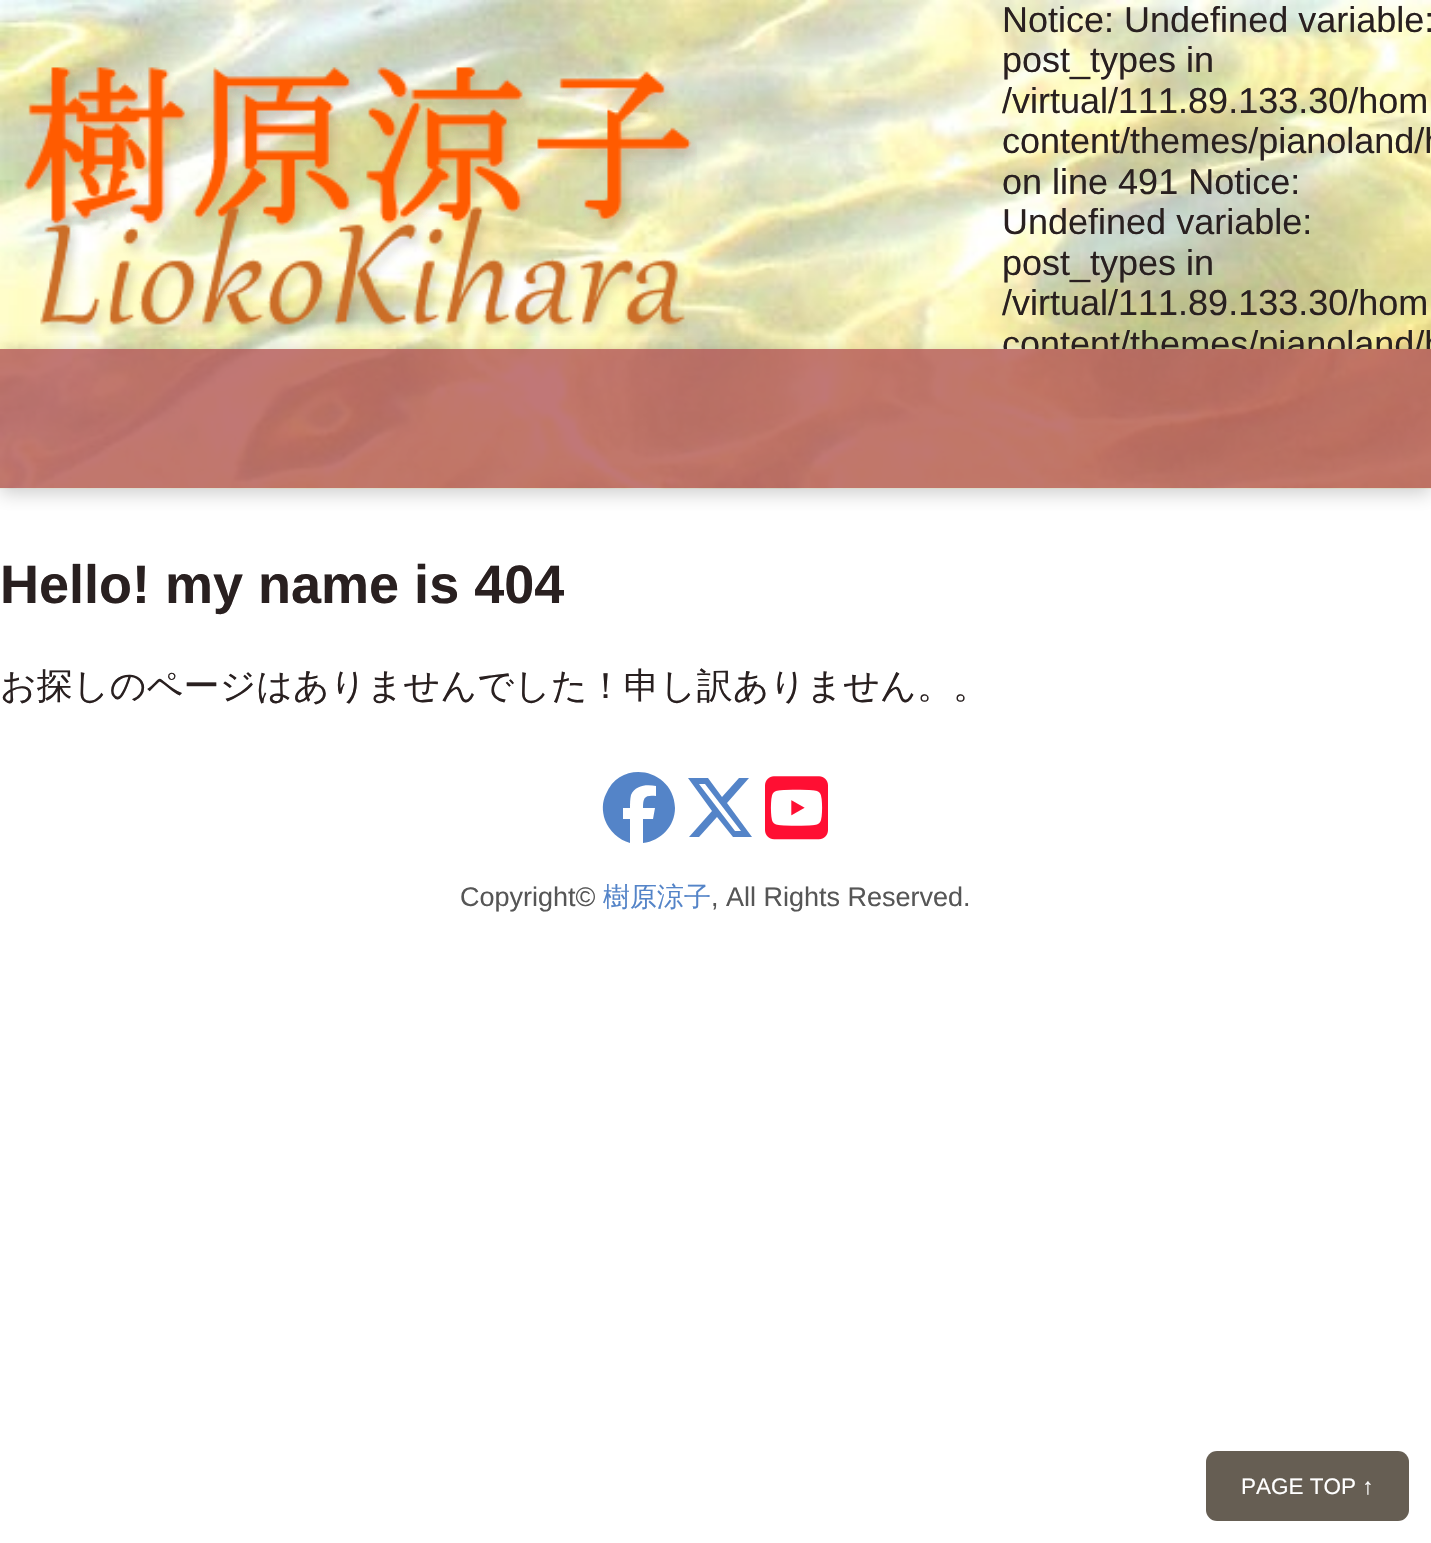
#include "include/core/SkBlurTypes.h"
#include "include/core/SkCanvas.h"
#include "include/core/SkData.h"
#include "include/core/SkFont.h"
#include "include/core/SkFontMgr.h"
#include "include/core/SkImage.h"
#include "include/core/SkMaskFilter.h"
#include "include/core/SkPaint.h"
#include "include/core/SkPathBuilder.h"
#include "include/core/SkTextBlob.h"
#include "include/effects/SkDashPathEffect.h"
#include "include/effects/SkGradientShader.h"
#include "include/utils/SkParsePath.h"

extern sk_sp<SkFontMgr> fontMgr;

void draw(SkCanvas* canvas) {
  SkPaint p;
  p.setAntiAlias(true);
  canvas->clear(SK_ColorWHITE);
  canvas->drawImageRect(SkImages::DeferredFromEncodedData(SkData::MakeFromFileName("images/1.png")), SkRect::MakeLTRB(0, 0, 1431, 489), SkSamplingOptions());
  canvas->drawImageRect(SkImages::DeferredFromEncodedData(SkData::MakeFromFileName("images/2.png")), SkRect::MakeLTRB(24, 67, 697, 235), SkSamplingOptions());
  canvas->save();
  canvas->clipPath(SkPathBuilder(SkPathFillType::kEvenOdd).moveTo(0, 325).lineTo(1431, 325).lineTo(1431, 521).lineTo(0, 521).close().moveTo(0, 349).lineTo(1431, 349).lineTo(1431, 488).lineTo(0, 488).close().detach(), true);
  p.setColor(SkColorSetARGB(51, 0, 0, 0));
  p.setMaskFilter(SkMaskFilter::MakeBlur(kNormal_SkBlurStyle, 9));
  canvas->drawRect(SkRect::MakeLTRB(0, 353, 1431, 493), p);
  p.setMaskFilter(nullptr);
  canvas->restore();
  canvas->drawImageRect(SkImages::DeferredFromEncodedData(SkData::MakeFromFileName("images/3.png")), SkRect::MakeLTRB(40, 206, 688, 336), SkSamplingOptions());
  p.setColor(SkColorSetARGB(204, 177, 85, 85));
  canvas->drawRect(SkRect::MakeLTRB(0, 349, 1431, 488), p);
  p.setColor(SkColorSetRGB(84, 132, 200));
  canvas->drawPath(SkPathBuilder().moveTo(675, 808).cubicTo(674, 769, 621, 758, 606, 794).cubicTo(602, 802, 602, 811, 605, 820).cubicTo(609, 831, 619, 840, 630, 843).lineTo(630, 819).lineTo(623, 819).lineTo(623, 808).lineTo(630, 808).cubicTo(630, 804, 630, 799, 631, 795).cubicTo(635, 785, 647, 784, 656, 786).lineTo(656, 796).cubicTo(645, 795, 643, 797, 643, 808).lineTo(655, 808).lineTo(653, 819).lineTo(643, 819).lineTo(643, 843).cubicTo(661, 841, 675, 826, 675, 808).close().detach(), p);
  canvas->drawPath(SkPathBuilder().moveTo(739, 778).lineTo(749, 778).lineTo(739, 778).lineTo(749, 778).lineTo(727, 803).lineTo(752, 837).lineTo(733, 837).lineTo(717, 817).lineTo(699, 837).lineTo(689, 837).lineTo(712, 811).lineTo(688, 778).lineTo(708, 778).lineTo(722, 797).close().moveTo(735, 831).lineTo(741, 831).lineTo(735, 831).lineTo(741, 831).lineTo(705, 784).lineTo(699, 784).close().detach(), p);
  canvas->drawImageRect(SkImages::DeferredFromEncodedData(SkData::MakeFromFileName("images/4.png")), SkRect::MakeLTRB(765, 776, 828, 840), SkSamplingOptions());
  p.setColor(SkColorSetRGB(102, 94, 83));
  canvas->drawRoundRect(SkRect::MakeLTRB(1206, 1451, 1409, 1521), 11, 11, p);
  SkFont font1(fontMgr->matchFamilyStyle("Liberation Sans", SkFontStyle::Normal()), 36);
  font1.setSubpixel(true);
  p.setColor(SkColorSetRGB(41, 32, 32));
  canvas->drawString("Notice: Undefined variable:", 1002, 32, font1, p);
  canvas->drawString("post_types in", 1002, 72, font1, p);
  canvas->drawString("/virtual/111.89.133.30/hom", 1002, 113, font1, p);
  canvas->drawString("content/themes/pianoland/h", 1002, 153, font1, p);
  canvas->drawString("on line 491 Notice:", 1002, 194, font1, p);
  canvas->drawString("Undefined variable:", 1002, 234, font1, p);
  canvas->drawString("post_types in", 1002, 275, font1, p);
  canvas->drawString("/virtual/111.89.133.30/hom", 1002, 315, font1, p);
  canvas->save();
  canvas->clipRect(SkRect::MakeLTRB(0, 0, 1431, 349));
  canvas->drawString("content/themes/pianoland/h", 1002, 356, font1, p);
  canvas->restore();
  SkFont font2(fontMgr->matchFamilyStyle("Liberation Sans", SkFontStyle::Bold()), 54);
  font2.setSubpixel(true);
  canvas->drawString("Hello! my name is 404", 0, 603, font2, p);
  SkFont font3(fontMgr->matchFamilyStyle("WenQuanYi Zen Hei", SkFontStyle(500, SkFontStyle::kNormal_Width, SkFontStyle::kUpright_Slant)), 36);
  font3.setSubpixel(true);
  canvas->drawString("お探しのページはありませんでした！申し訳ありません。。", 0, 698, font3, p);
  SkFont font4(fontMgr->matchFamilyStyle("Liberation Sans", SkFontStyle::Normal()), 27);
  font4.setSubpixel(true);
  p.setColor(SkColorSetRGB(86, 86, 86));
  canvas->drawString("Copyright©", 460, 906, font4, p);
  SkFont font5(fontMgr->matchFamilyStyle("WenQuanYi Zen Hei", SkFontStyle(500, SkFontStyle::kNormal_Width, SkFontStyle::kUpright_Slant)), 27);
  font5.setSubpixel(true);
  p.setColor(SkColorSetRGB(84, 132, 200));
  canvas->drawString("樹原涼子", 603, 906, font5, p);
  p.setColor(SkColorSetRGB(86, 86, 86));
  canvas->drawString(", All Rights Reserved.", 711, 906, font4, p);
  SkFont font6(fontMgr->matchFamilyStyle("Liberation Sans", SkFontStyle::Normal()), 22.5f);
  font6.setSubpixel(true);
  p.setColor(SK_ColorWHITE);
  canvas->drawString("PAGE TOP ↑", 1241, 1494, font6, p);
}
